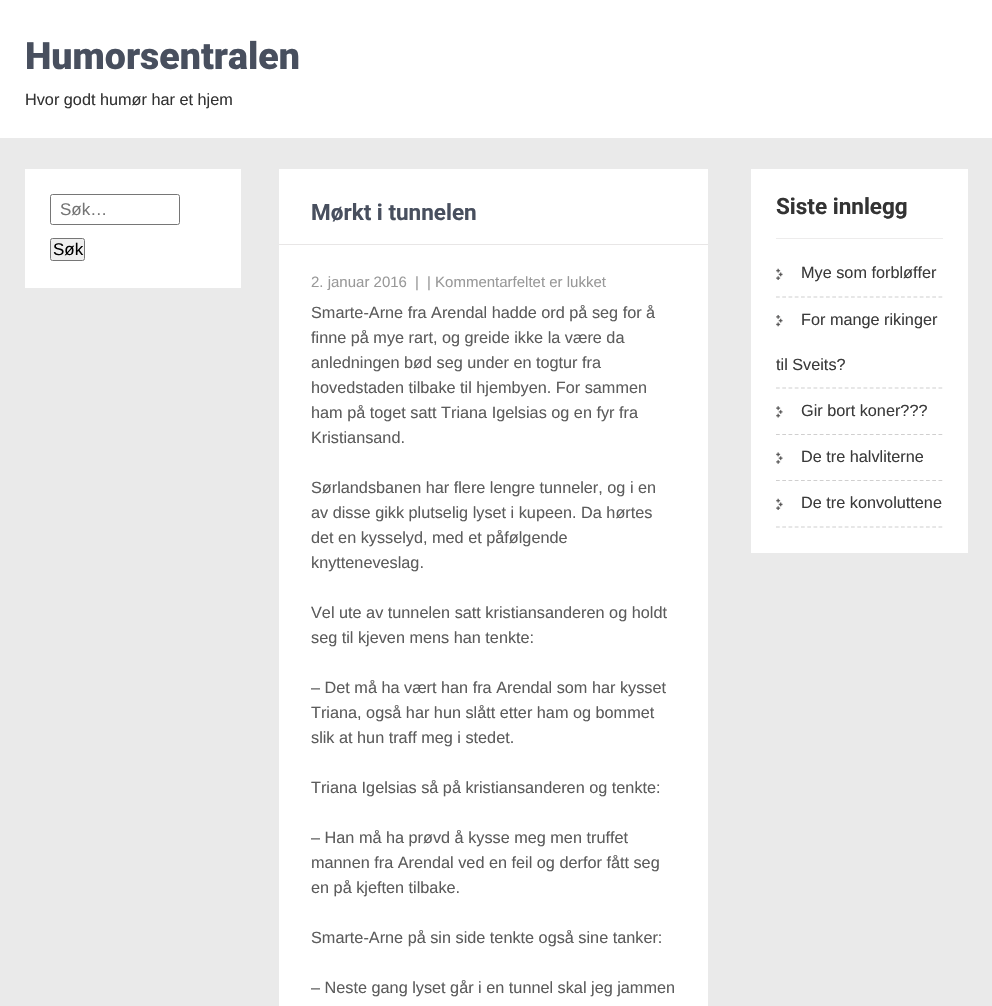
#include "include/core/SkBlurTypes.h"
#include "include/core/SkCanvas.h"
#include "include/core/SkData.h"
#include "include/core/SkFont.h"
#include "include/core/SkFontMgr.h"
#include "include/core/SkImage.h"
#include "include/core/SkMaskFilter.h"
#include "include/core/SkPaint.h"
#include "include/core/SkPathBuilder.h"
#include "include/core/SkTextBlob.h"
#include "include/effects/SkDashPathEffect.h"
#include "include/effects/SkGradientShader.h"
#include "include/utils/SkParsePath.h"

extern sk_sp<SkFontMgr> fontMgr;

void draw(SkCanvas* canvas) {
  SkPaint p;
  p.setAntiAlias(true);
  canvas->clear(SkColorSetRGB(234, 234, 234));
  p.setColor(SK_ColorWHITE);
  canvas->drawRect(SkRect::MakeLTRB(0, 0, 992, 138), p);
  canvas->drawRect(SkRect::MakeLTRB(25, 169, 241, 288), p);
  p.setStyle(SkPaint::kStroke_Style);
  p.setStrokeWidth(1);
  p.setColor(SkColorSetRGB(118, 118, 118));
  canvas->drawRoundRect(SkRect::MakeLTRB(50.5f, 194.5f, 179.5f, 224.5f), 2, 2, p);
  p.setStyle(SkPaint::kFill_Style);
  p.setColor(SkColorSetRGB(239, 239, 239));
  canvas->drawRoundRect(SkRect::MakeLTRB(50.5f, 238.5f, 84.5f, 260.5f), 2, 2, p);
  p.setStyle(SkPaint::kStroke_Style);
  p.setColor(SkColorSetRGB(118, 118, 118));
  canvas->drawRoundRect(SkRect::MakeLTRB(50.5f, 238.5f, 84.5f, 260.5f), 2, 2, p);
  p.setStyle(SkPaint::kFill_Style);
  p.setColor(SK_ColorWHITE);
  canvas->drawRect(SkRect::MakeLTRB(279, 169, 708, 1006), p);
  p.setColor(SkColorSetRGB(232, 230, 230));
  canvas->drawRect(SkRect::MakeLTRB(279, 244, 708, 245), p);
  p.setColor(SK_ColorWHITE);
  canvas->drawRect(SkRect::MakeLTRB(751, 169, 968, 553), p);
  p.setColor(SkColorSetRGB(237, 236, 236));
  canvas->drawRect(SkRect::MakeLTRB(776, 238, 943, 239), p);
  canvas->drawImageRect(SkImages::DeferredFromEncodedData(SkData::MakeFromFileName("images/1.png")), SkRect::MakeLTRB(776, 268, 783, 280), SkSamplingOptions());
  p.setStyle(SkPaint::kStroke_Style);
  p.setStrokeWidth(1.2f);
  p.setColor(SkColorSetRGB(208, 207, 207));
  p.setPathEffect(SkDashPathEffect::Make({{3.75f, 2.5f}}, 0));
  canvas->drawPath(SkPathBuilder().moveTo(776, 297).lineTo(942.5f, 297).detach(), p);
  p.setPathEffect(nullptr);
  canvas->drawImageRect(SkImages::DeferredFromEncodedData(SkData::MakeFromFileName("images/2.png")), SkRect::MakeLTRB(776, 315, 783, 327), SkSamplingOptions());
  p.setPathEffect(SkDashPathEffect::Make({{3.75f, 2.5f}}, 0));
  canvas->drawPath(SkPathBuilder().moveTo(776, 388).lineTo(942.5f, 388).detach(), p);
  p.setPathEffect(nullptr);
  canvas->drawImageRect(SkImages::DeferredFromEncodedData(SkData::MakeFromFileName("images/3.png")), SkRect::MakeLTRB(776, 406, 783, 418), SkSamplingOptions());
  p.setPathEffect(SkDashPathEffect::Make({{3.75f, 2.5f}}, 0));
  canvas->drawPath(SkPathBuilder().moveTo(776, 434.5f).lineTo(942.5f, 434.5f).detach(), p);
  p.setPathEffect(nullptr);
  canvas->drawImageRect(SkImages::DeferredFromEncodedData(SkData::MakeFromFileName("images/4.png")), SkRect::MakeLTRB(776, 452, 783, 464), SkSamplingOptions());
  p.setPathEffect(SkDashPathEffect::Make({{3.75f, 2.5f}}, 0));
  canvas->drawPath(SkPathBuilder().moveTo(776, 480.5f).lineTo(942.5f, 480.5f).detach(), p);
  p.setPathEffect(nullptr);
  canvas->drawImageRect(SkImages::DeferredFromEncodedData(SkData::MakeFromFileName("images/1.png")), SkRect::MakeLTRB(776, 498, 783, 510), SkSamplingOptions());
  p.setPathEffect(SkDashPathEffect::Make({{3.75f, 2.5f}}, 0));
  canvas->drawPath(SkPathBuilder().moveTo(776, 527).lineTo(942.5f, 527).detach(), p);
  p.setPathEffect(nullptr);
  SkFont font1(fontMgr->matchFamilyStyle("Roboto", SkFontStyle(900, SkFontStyle::kNormal_Width, SkFontStyle::kUpright_Slant)), 37.5f);
  font1.setSubpixel(true);
  p.setStyle(SkPaint::kFill_Style);
  p.setColor(SkColorSetRGB(72, 79, 94));
  canvas->drawString("Humorsentralen", 25, 69, font1, p);
  SkFont font2(fontMgr->matchFamilyStyle("Liberation Sans", SkFontStyle::Normal()), 16.25f);
  font2.setSubpixel(true);
  p.setColor(SkColorSetRGB(51, 51, 51));
  canvas->drawString("Hvor godt humør har et hjem", 25, 105, font2, p);
  SkFont font3(fontMgr->matchFamilyStyle("Liberation Sans", SkFontStyle::Normal()), 17);
  font3.setSubpixel(true);
  p.setColor(SkColorSetRGB(117, 117, 117));
  canvas->drawString("Søk…", 60, 215, font3, p);
  p.setColor(SK_ColorBLACK);
  canvas->drawString("Søk", 53, 255, font3, p);
  SkFont font4(fontMgr->matchFamilyStyle("Roboto", SkFontStyle::Bold()), 22.5f);
  font4.setSubpixel(true);
  p.setColor(SkColorSetRGB(72, 79, 94));
  canvas->drawString("Mørkt i tunnelen", 311, 220, font4, p);
  SkFont font5(fontMgr->matchFamilyStyle("Liberation Sans", SkFontStyle::Normal()), 15);
  font5.setSubpixel(true);
  p.setColor(SkColorSetRGB(153, 153, 153));
  canvas->drawString("2. januar 2016", 311, 287, font5, p);
  canvas->drawString("|", 415, 287, font5, p);
  canvas->drawString("| Kommentarfeltet er lukket", 427, 287, font5, p);
  p.setColor(SkColorSetRGB(92, 92, 92));
  canvas->drawString("Smarte-Arne fra Arendal hadde ord på seg for å", 311, 318, font2, p);
  canvas->drawString("finne på mye rart, og greide ikke la være da", 311, 343, font2, p);
  canvas->drawString("anledningen bød seg under en togtur fra", 311, 368, font2, p);
  canvas->drawString("hovedstaden tilbake til hjembyen. For sammen", 311, 393, font2, p);
  canvas->drawString("ham på toget satt Triana Igelsias og en fyr fra", 311, 418, font2, p);
  canvas->drawString("Kristiansand.", 311, 443, font2, p);
  canvas->drawString("Sørlandsbanen har flere lengre tunneler, og i en", 311, 493, font2, p);
  canvas->drawString("av disse gikk plutselig lyset i kupeen. Da hørtes", 311, 518, font2, p);
  canvas->drawString("det en kysselyd, med et påfølgende", 311, 543, font2, p);
  canvas->drawString("knytteneveslag.", 311, 568, font2, p);
  canvas->drawString("Vel ute av tunnelen satt kristiansanderen og holdt", 311, 618, font2, p);
  canvas->drawString("seg til kjeven mens han tenkte:", 311, 643, font2, p);
  canvas->drawString("– Det må ha vært han fra Arendal som har kysset", 311, 693, font2, p);
  canvas->drawString("Triana, også har hun slått etter ham og bommet", 311, 718, font2, p);
  canvas->drawString("slik at hun traff meg i stedet.", 311, 743, font2, p);
  canvas->drawString("Triana Igelsias så på kristiansanderen og tenkte:", 311, 793, font2, p);
  canvas->drawString("– Han må ha prøvd å kysse meg men truffet", 311, 843, font2, p);
  canvas->drawString("mannen fra Arendal ved en feil og derfor fått seg", 311, 868, font2, p);
  canvas->drawString("en på kjeften tilbake.", 311, 893, font2, p);
  canvas->drawString("Smarte-Arne på sin side tenkte også sine tanker:", 311, 943, font2, p);
  canvas->drawString("– Neste gang lyset går i en tunnel skal jeg jammen", 311, 993, font2, p);
  p.setColor(SkColorSetRGB(51, 51, 51));
  canvas->drawString("Siste innlegg", 776, 214, font4, p);
  p.setColor(SkColorSetRGB(59, 59, 59));
  canvas->drawString("Mye som forbløffer", 801, 278, font2, p);
  canvas->drawString("For mange rikinger", 801, 325, font2, p);
  canvas->drawString("til Sveits?", 776, 370, font2, p);
  canvas->drawString("Gir bort koner?\077?", 801, 416, font2, p);
  canvas->drawString("De tre halvliterne", 801, 462, font2, p);
  canvas->drawString("De tre konvoluttene", 801, 508, font2, p);
}
